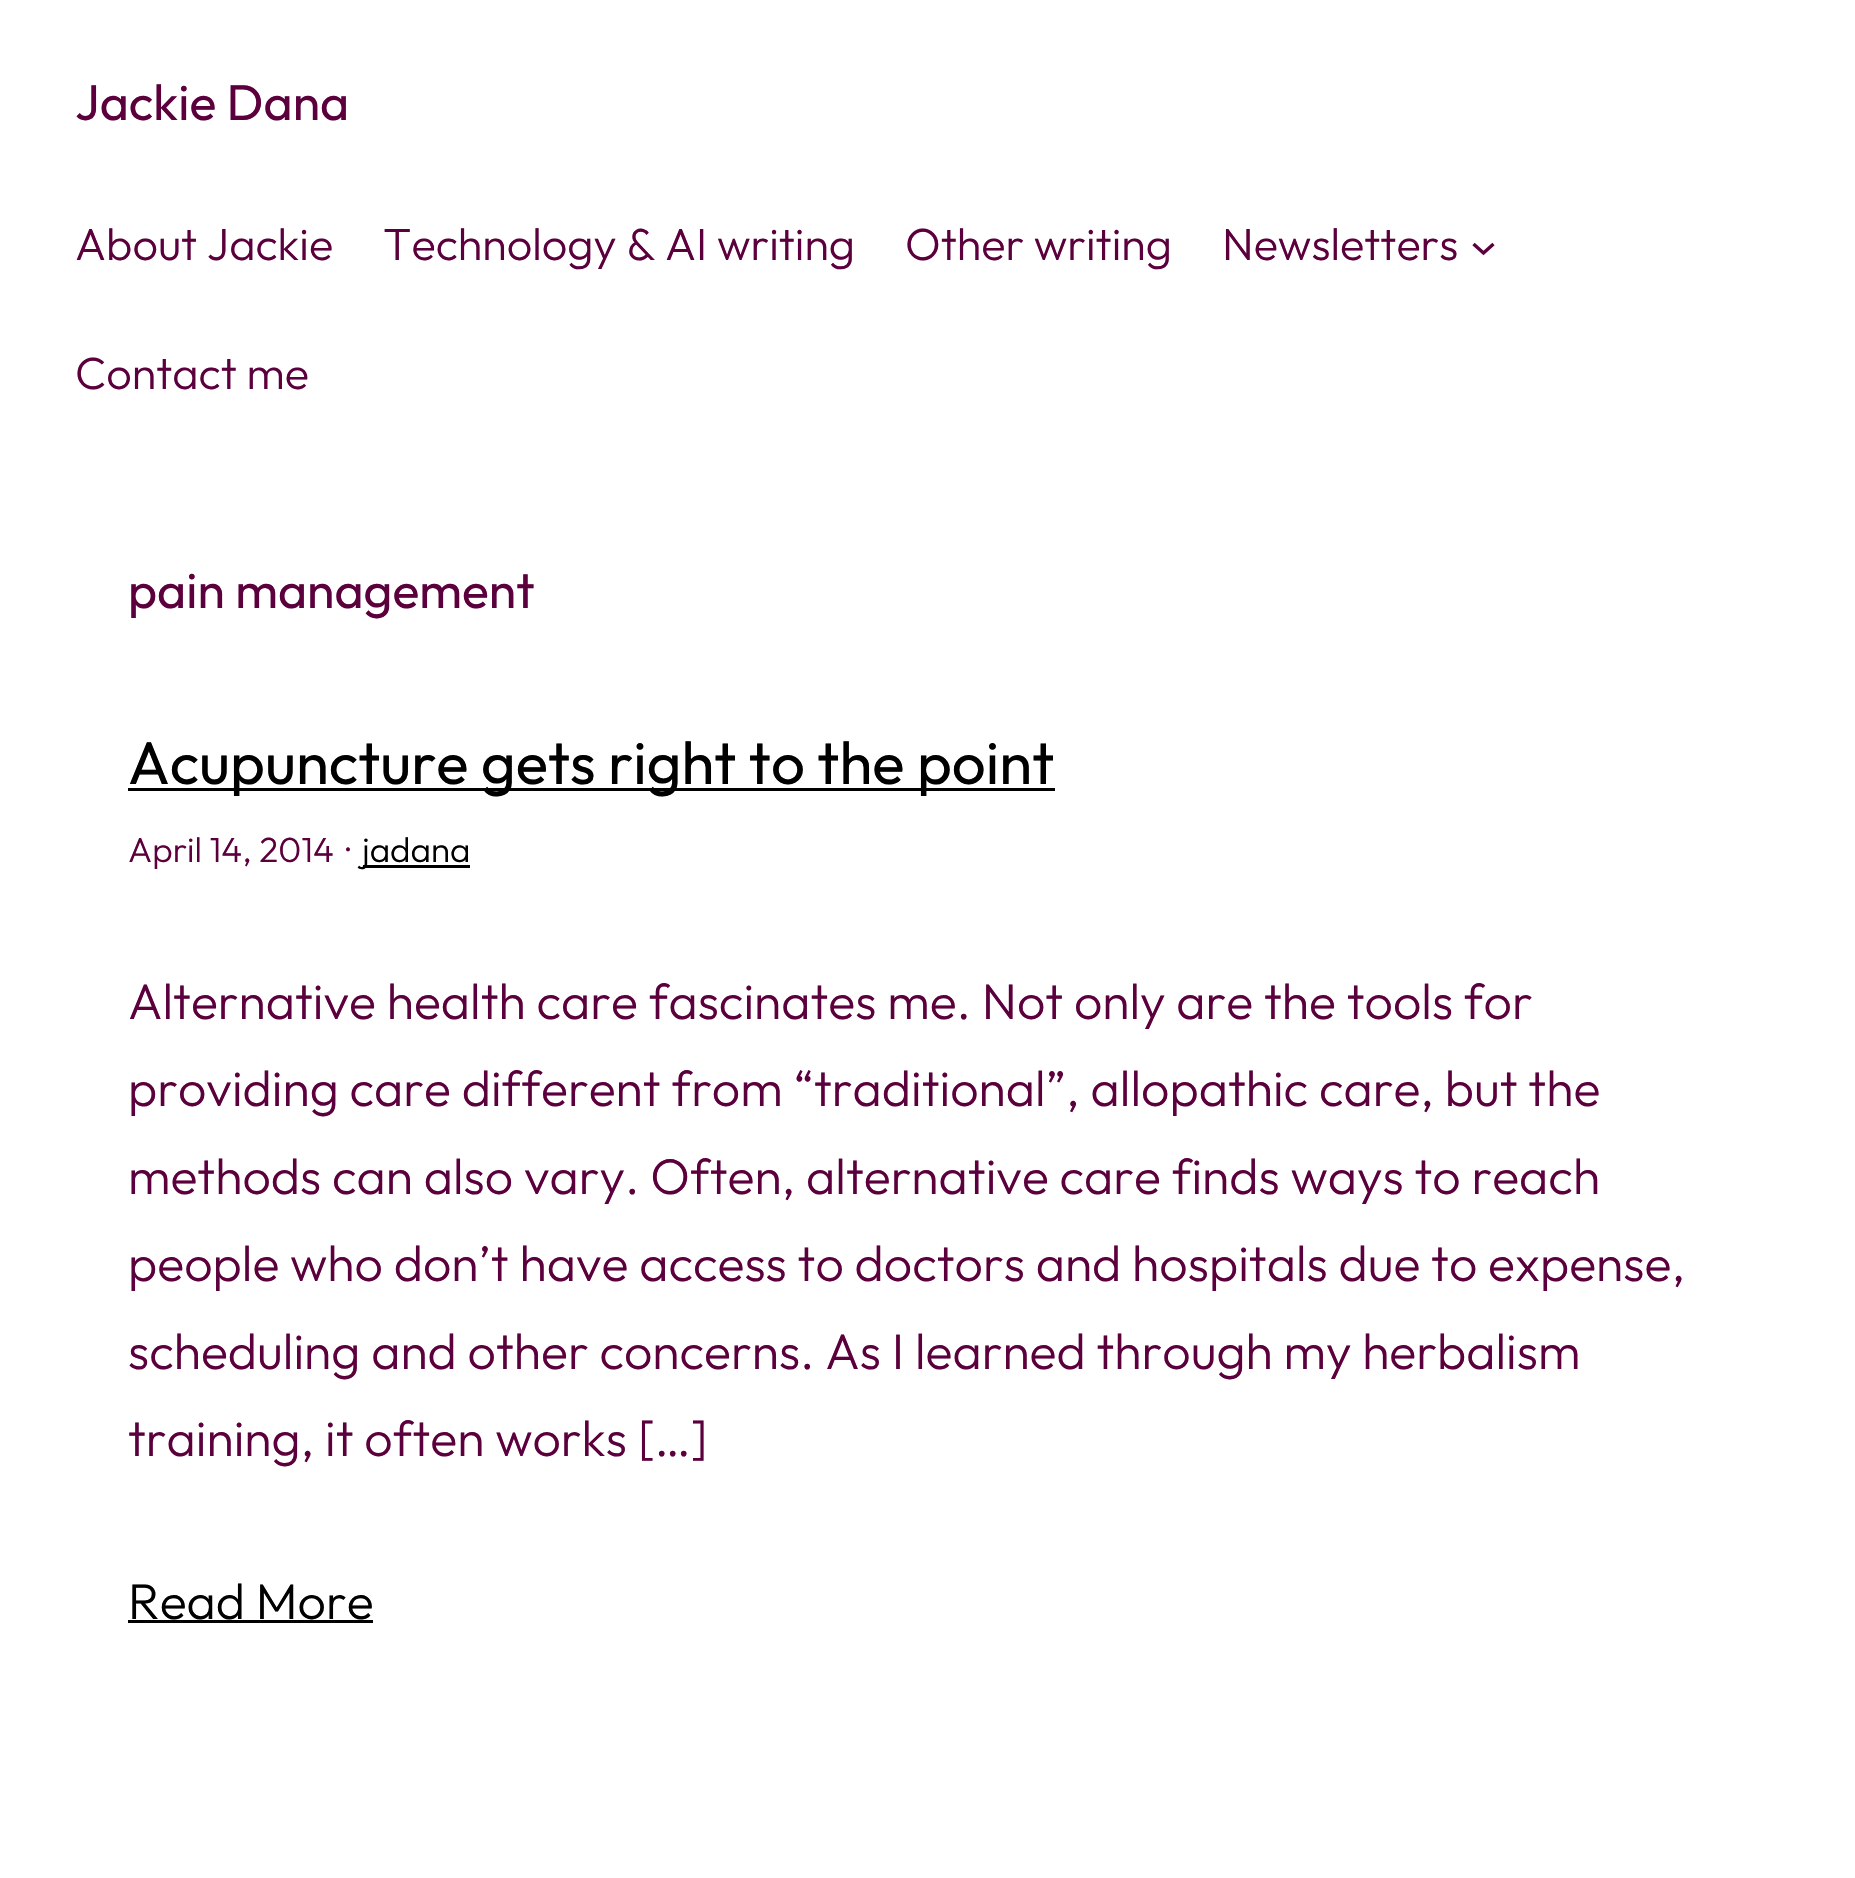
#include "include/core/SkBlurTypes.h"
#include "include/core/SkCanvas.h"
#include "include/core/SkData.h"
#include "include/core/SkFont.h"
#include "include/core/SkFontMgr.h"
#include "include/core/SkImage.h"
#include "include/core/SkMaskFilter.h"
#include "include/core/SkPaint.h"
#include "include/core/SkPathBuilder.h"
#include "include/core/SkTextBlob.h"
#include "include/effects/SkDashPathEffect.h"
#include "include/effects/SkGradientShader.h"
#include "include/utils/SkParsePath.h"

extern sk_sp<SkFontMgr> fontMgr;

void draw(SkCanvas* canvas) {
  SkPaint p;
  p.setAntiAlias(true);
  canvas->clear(SK_ColorWHITE);
  p.setStyle(SkPaint::kStroke_Style);
  p.setStrokeWidth(3.4f);
  p.setColor(SkColorSetRGB(92, 0, 61));
  canvas->drawPath(SkPathBuilder().moveTo(1473.5f, 244).lineTo(1483.5f, 253).lineTo(1493.5f, 244).detach(), p);
  p.setStyle(SkPaint::kFill_Style);
  p.setColor(SK_ColorBLACK);
  canvas->drawRect(SkRect::MakeLTRB(128, 788, 1055, 791), p);
  canvas->drawRect(SkRect::MakeLTRB(363, 865, 470, 868), p);
  canvas->drawRect(SkRect::MakeLTRB(128, 1620, 373, 1623), p);
  SkFont font1(fontMgr->matchFamilyStyle("Outfit", SkFontStyle::Normal()), 50);
  font1.setSubpixel(true);
  p.setColor(SkColorSetRGB(92, 0, 61));
  canvas->drawString("Jackie Dana", 75, 120, font1, p);
  SkFont font2(fontMgr->matchFamilyStyle("Outfit", SkFontStyle(300, SkFontStyle::kNormal_Width, SkFontStyle::kUpright_Slant)), 45);
  font2.setSubpixel(true);
  canvas->drawString("About Jackie", 75, 260, font2, p);
  canvas->drawString("Technology & AI writing", 383, 260, font2, p);
  canvas->drawString("Other writing", 905, 260, font2, p);
  canvas->drawString("Newsletters", 1222, 260, font2, p);
  canvas->drawString("Contact me", 75, 389, font2, p);
  canvas->drawString("pain management", 128, 608, font1, p);
  SkFont font3(fontMgr->matchFamilyStyle("Outfit", SkFontStyle::Normal()), 60);
  font3.setSubpixel(true);
  p.setColor(SK_ColorBLACK);
  canvas->drawString("Acupuncture gets right to the point", 128, 784, font3, p);
  SkFont font4(fontMgr->matchFamilyStyle("Outfit", SkFontStyle(300, SkFontStyle::kNormal_Width, SkFontStyle::kUpright_Slant)), 35);
  font4.setSubpixel(true);
  p.setColor(SkColorSetRGB(92, 0, 61));
  canvas->drawString("April 14, 2014", 128, 862, font4, p);
  canvas->drawString("·", 346, 862, font4, p);
  p.setColor(SK_ColorBLACK);
  canvas->drawString("jadana", 362, 862, font4, p);
  SkFont font5(fontMgr->matchFamilyStyle("Outfit", SkFontStyle(300, SkFontStyle::kNormal_Width, SkFontStyle::kUpright_Slant)), 50);
  font5.setSubpixel(true);
  p.setColor(SkColorSetRGB(92, 0, 61));
  canvas->drawString("Alternative health care fascinates me. Not only are the tools for", 128, 1019, font5, p);
  canvas->drawString("providing care different from “traditional”, allopathic care, but the", 128, 1106, font5, p);
  canvas->drawString("methods can also vary. Often, alternative care finds ways to reach", 128, 1194, font5, p);
  canvas->drawString("people who don’t have access to doctors and hospitals due to expense,", 128, 1281, font5, p);
  canvas->drawString("scheduling and other concerns. As I learned through my herbalism", 128, 1369, font5, p);
  canvas->drawString("training, it often works […]", 128, 1456, font5, p);
  p.setColor(SK_ColorBLACK);
  canvas->drawString("Read More", 128, 1619, font5, p);
}
